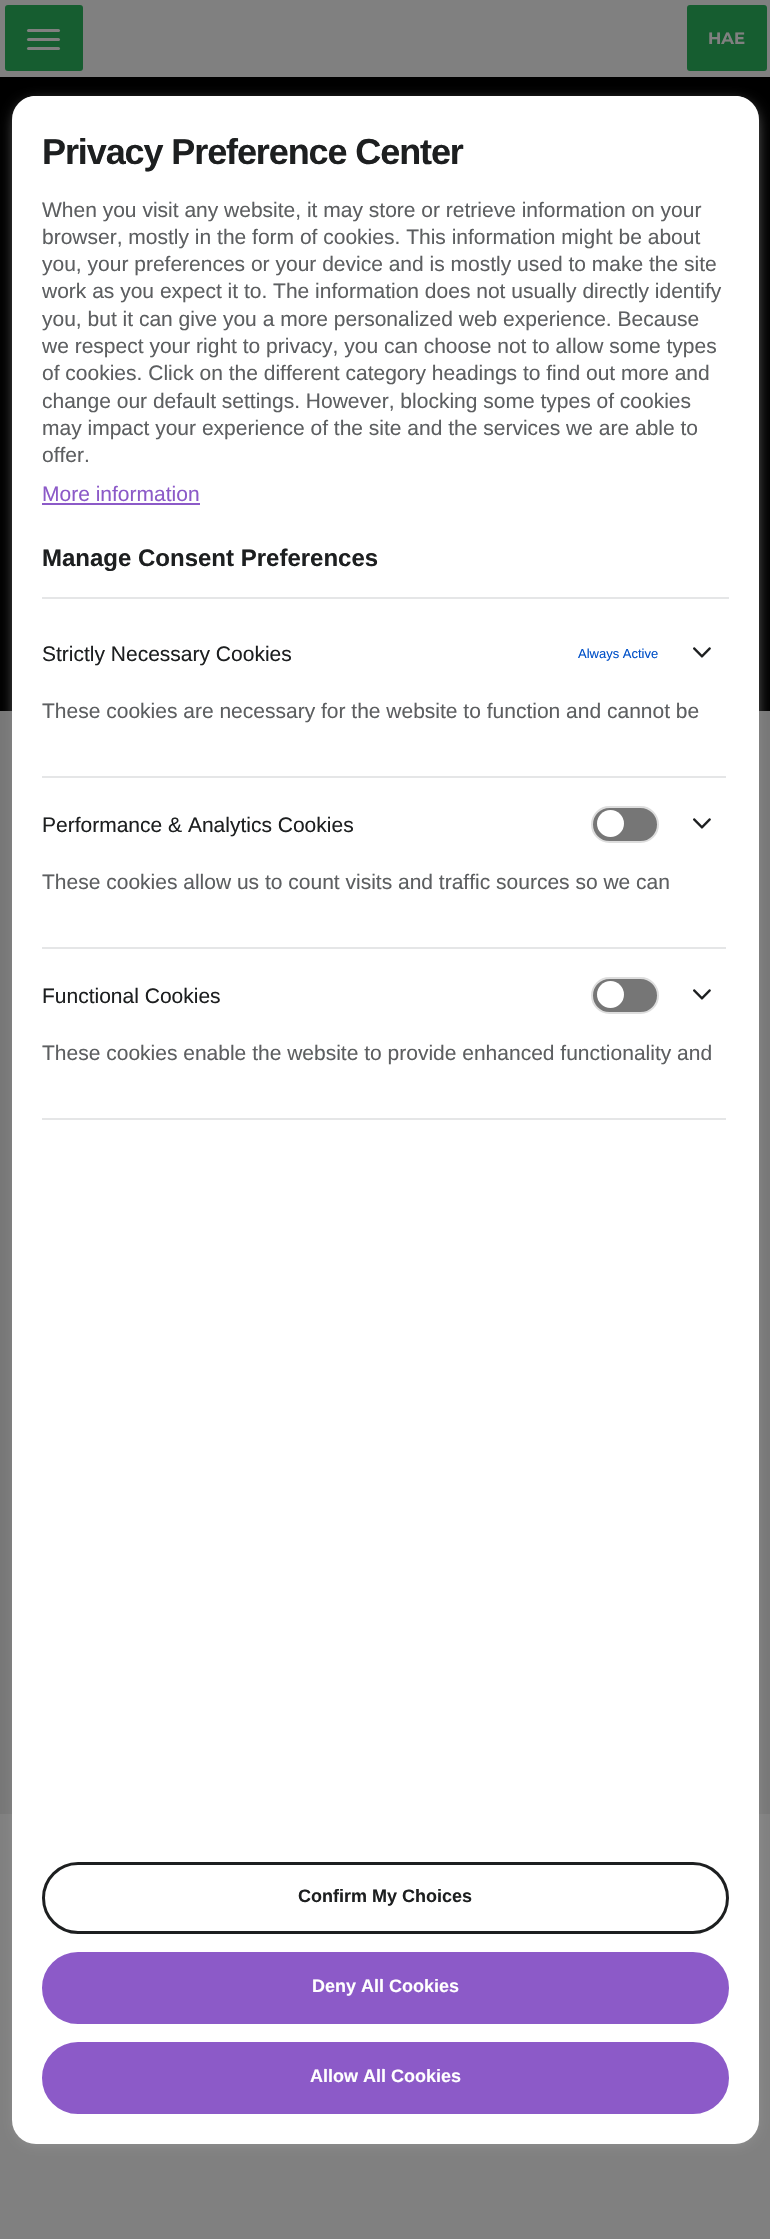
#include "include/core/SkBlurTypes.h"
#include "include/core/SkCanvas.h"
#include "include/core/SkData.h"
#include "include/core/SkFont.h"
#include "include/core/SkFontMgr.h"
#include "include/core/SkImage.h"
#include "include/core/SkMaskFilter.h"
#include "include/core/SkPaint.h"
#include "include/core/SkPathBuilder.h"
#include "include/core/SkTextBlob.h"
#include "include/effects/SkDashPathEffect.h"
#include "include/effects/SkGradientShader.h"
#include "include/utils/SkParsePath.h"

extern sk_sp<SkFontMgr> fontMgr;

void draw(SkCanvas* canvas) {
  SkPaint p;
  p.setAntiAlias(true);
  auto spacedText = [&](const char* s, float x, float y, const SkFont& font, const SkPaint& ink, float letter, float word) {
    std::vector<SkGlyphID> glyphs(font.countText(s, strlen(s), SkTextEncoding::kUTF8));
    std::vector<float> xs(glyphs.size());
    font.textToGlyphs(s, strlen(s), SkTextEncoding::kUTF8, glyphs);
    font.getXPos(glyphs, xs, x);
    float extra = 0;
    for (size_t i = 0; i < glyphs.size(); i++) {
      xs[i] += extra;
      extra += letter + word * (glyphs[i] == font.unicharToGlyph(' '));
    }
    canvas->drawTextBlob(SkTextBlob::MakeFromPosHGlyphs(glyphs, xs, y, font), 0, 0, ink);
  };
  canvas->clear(SkColorSetRGB(128, 128, 128));
  p.setColor(SkColorSetRGB(22, 93, 48));
  canvas->drawRoundRect(SkRect::MakeLTRB(5, 5, 83, 71), 3, 3, p);
  p.setColor(SkColorSetRGB(128, 128, 128));
  canvas->drawRoundRect(SkRect::MakeLTRB(27, 29, 60, 32), 1.5f, 1.5f, p);
  canvas->drawRoundRect(SkRect::MakeLTRB(27, 38, 60, 41), 1.5f, 1.5f, p);
  canvas->drawRoundRect(SkRect::MakeLTRB(27, 47, 60, 50), 1.5f, 1.5f, p);
  p.setColor(SkColorSetRGB(22, 93, 48));
  canvas->drawRoundRect(SkRect::MakeLTRB(687, 5, 767, 71), 3, 3, p);
  p.setColor(SK_ColorBLACK);
  canvas->drawRect(SkRect::MakeLTRB(0, 77, 770, 711), p);
  p.setColor(SkColorSetRGB(119, 119, 119));
  canvas->drawRect(SkRect::MakeLTRB(0, 711, 770, 1814), p);
  p.setColor(SkColorSetRGB(153, 153, 153));
  p.setMaskFilter(SkMaskFilter::MakeBlur(kNormal_SkBlurStyle, 7.5f));
  canvas->drawRoundRect(SkRect::MakeLTRB(17, 104, 755, 2142), 20, 20, p);
  p.setMaskFilter(nullptr);
  p.setColor(SK_ColorWHITE);
  canvas->drawRoundRect(SkRect::MakeLTRB(12, 96, 759, 2144), 24, 24, p);
  {
    const SkColor colors[] = {SkColorSetARGB(0, 255, 255, 255), SK_ColorWHITE};
    const float stops[] = {0, 1};
    const SkPoint ends[] = {{386, 132}, {386, 96}};
    p.setShader(SkGradientShader::MakeLinear(ends, colors, stops, 2, SkTileMode::kClamp));
    p.setAlpha(255);
  }
  canvas->drawPath(SkPathBuilder().moveTo(36, 96).lineTo(735, 96).cubicTo(748.5f, 96, 759, 106.5f, 759, 120).lineTo(759, 132).lineTo(12, 132).lineTo(12, 120).cubicTo(12, 106.5f, 22.5f, 96, 36, 96).close().detach(), p);
  p.setShader(nullptr);
  p.setColor(SkColorSetRGB(140, 90, 200));
  canvas->drawRect(SkRect::MakeLTRB(42, 503, 200, 505), p);
  p.setColor(SkColorSetRGB(229, 230, 231));
  canvas->drawRect(SkRect::MakeLTRB(42, 597, 729, 599), p);
  canvas->drawImageRect(SkImages::DeferredFromEncodedData(SkData::MakeFromFileName("images/1.png")), SkRect::MakeLTRB(693, 647, 711, 658), SkSamplingOptions());
  canvas->drawRect(SkRect::MakeLTRB(42, 776, 726, 778), p);
  p.setColor(SkColorSetRGB(118, 118, 118));
  canvas->drawRoundRect(SkRect::MakeLTRB(592, 807, 658, 842), 17.5f, 17.5f, p);
  p.setStyle(SkPaint::kStroke_Style);
  p.setStrokeWidth(2);
  p.setColor(SkColorSetRGB(221, 221, 221));
  canvas->drawRoundRect(SkRect::MakeLTRB(592, 807, 658, 842), 17.5f, 17.5f, p);
  p.setStyle(SkPaint::kFill_Style);
  p.setColor(SK_ColorWHITE);
  canvas->drawCircle(610.5f, 823.5f, 13.5f, p);
  canvas->drawImageRect(SkImages::DeferredFromEncodedData(SkData::MakeFromFileName("images/1.png")), SkRect::MakeLTRB(693, 818, 711, 829), SkSamplingOptions());
  p.setColor(SkColorSetRGB(229, 230, 231));
  canvas->drawRect(SkRect::MakeLTRB(42, 947, 726, 949), p);
  p.setColor(SkColorSetRGB(118, 118, 118));
  canvas->drawRoundRect(SkRect::MakeLTRB(592, 978, 658, 1013), 17.5f, 17.5f, p);
  p.setStyle(SkPaint::kStroke_Style);
  p.setColor(SkColorSetRGB(221, 221, 221));
  canvas->drawRoundRect(SkRect::MakeLTRB(592, 978, 658, 1013), 17.5f, 17.5f, p);
  p.setStyle(SkPaint::kFill_Style);
  p.setColor(SK_ColorWHITE);
  canvas->drawCircle(610.5f, 994.5f, 13.5f, p);
  canvas->drawImageRect(SkImages::DeferredFromEncodedData(SkData::MakeFromFileName("images/1.png")), SkRect::MakeLTRB(693, 989, 711, 1000), SkSamplingOptions());
  p.setColor(SkColorSetRGB(229, 230, 231));
  canvas->drawRect(SkRect::MakeLTRB(42, 1118, 726, 1120), p);
  p.setStyle(SkPaint::kStroke_Style);
  p.setStrokeWidth(3);
  p.setColor(SkColorSetRGB(29, 31, 32));
  canvas->drawRoundRect(SkRect::MakeLTRB(43.5f, 1863.5f, 727.5f, 1932.5f), 34.5f, 34.5f, p);
  p.setStyle(SkPaint::kFill_Style);
  p.setColor(SkColorSetRGB(140, 90, 200));
  canvas->drawRoundRect(SkRect::MakeLTRB(43, 1953, 728, 2023), 35, 35, p);
  p.setStyle(SkPaint::kStroke_Style);
  p.setStrokeWidth(2);
  canvas->drawRoundRect(SkRect::MakeLTRB(43, 1953, 728, 2023), 35, 35, p);
  p.setStyle(SkPaint::kFill_Style);
  canvas->drawRoundRect(SkRect::MakeLTRB(43, 2043, 728, 2113), 35, 35, p);
  p.setStyle(SkPaint::kStroke_Style);
  canvas->drawRoundRect(SkRect::MakeLTRB(43, 2043, 728, 2113), 35, 35, p);
  SkFont font1(fontMgr->matchFamilyStyle("Montserrat", SkFontStyle::Bold()), 16.5f);
  font1.setSubpixel(true);
  p.setStyle(SkPaint::kFill_Style);
  p.setColor(SkColorSetRGB(128, 128, 128));
  canvas->drawString("HAE", 708, 44, font1, p);
  SkFont font2(fontMgr->matchFamilyStyle("Liberation Sans", SkFontStyle::Bold()), 36);
  font2.setSubpixel(true);
  p.setColor(SkColorSetRGB(29, 31, 32));
  spacedText("Privacy Preference Center", 42, 164, font2, p, -1.1f, 0);
  SkFont font3(fontMgr->matchFamilyStyle("Liberation Sans", SkFontStyle::Normal()), 21);
  font3.setSubpixel(true);
  p.setColor(SkColorSetRGB(93, 95, 97));
  canvas->drawString("When you visit any website, it may store or retrieve information on your", 42, 217, font3, p);
  canvas->drawString("browser, mostly in the form of cookies. This information might be about", 42, 244, font3, p);
  canvas->drawString("you, your preferences or your device and is mostly used to make the site", 42, 271, font3, p);
  canvas->drawString("work as you expect it to. The information does not usually directly identify", 42, 298, font3, p);
  canvas->drawString("you, but it can give you a more personalized web experience. Because", 42, 326, font3, p);
  canvas->drawString("we respect your right to privacy, you can choose not to allow some types", 42, 353, font3, p);
  canvas->drawString("of cookies. Click on the different category headings to find out more and", 42, 380, font3, p);
  canvas->drawString("change our default settings. However, blocking some types of cookies", 42, 408, font3, p);
  canvas->drawString("may impact your experience of the site and the services we are able to", 42, 435, font3, p);
  canvas->drawString("offer.", 42, 462, font3, p);
  p.setColor(SkColorSetRGB(140, 90, 200));
  canvas->drawString("More information", 42, 501, font3, p);
  SkFont font4(fontMgr->matchFamilyStyle("Liberation Sans", SkFontStyle::Bold()), 24);
  font4.setSubpixel(true);
  p.setColor(SkColorSetRGB(29, 31, 32));
  canvas->drawString("Manage Consent Preferences", 42, 566, font4, p);
  canvas->drawString("Strictly Necessary Cookies", 42, 661, font3, p);
  SkFont font5(fontMgr->matchFamilyStyle("Liberation Sans", SkFontStyle::Normal()), 13);
  font5.setSubpixel(true);
  p.setColor(SkColorSetRGB(0, 80, 200));
  canvas->drawString("Always Active", 578, 658, font5, p);
  p.setColor(SkColorSetRGB(93, 95, 97));
  canvas->drawString("These cookies are necessary for the website to function and cannot be", 42, 718, font3, p);
  p.setColor(SkColorSetRGB(29, 31, 32));
  canvas->drawString("Performance & Analytics Cookies", 42, 832, font3, p);
  p.setColor(SkColorSetRGB(93, 95, 97));
  canvas->drawString("These cookies allow us to count visits and traffic sources so we can", 42, 889, font3, p);
  p.setColor(SkColorSetRGB(29, 31, 32));
  canvas->drawString("Functional Cookies", 42, 1003, font3, p);
  p.setColor(SkColorSetRGB(93, 95, 97));
  canvas->drawString("These cookies enable the website to provide enhanced functionality and", 42, 1060, font3, p);
  SkFont font6(fontMgr->matchFamilyStyle("Liberation Sans", SkFontStyle::Bold()), 18);
  font6.setSubpixel(true);
  p.setColor(SkColorSetRGB(29, 31, 32));
  canvas->drawString("Confirm My Choices", 298, 1902, font6, p);
  p.setColor(SK_ColorWHITE);
  canvas->drawString("Deny All Cookies", 312, 1992, font6, p);
  canvas->drawString("Allow All Cookies", 310, 2082, font6, p);
}
